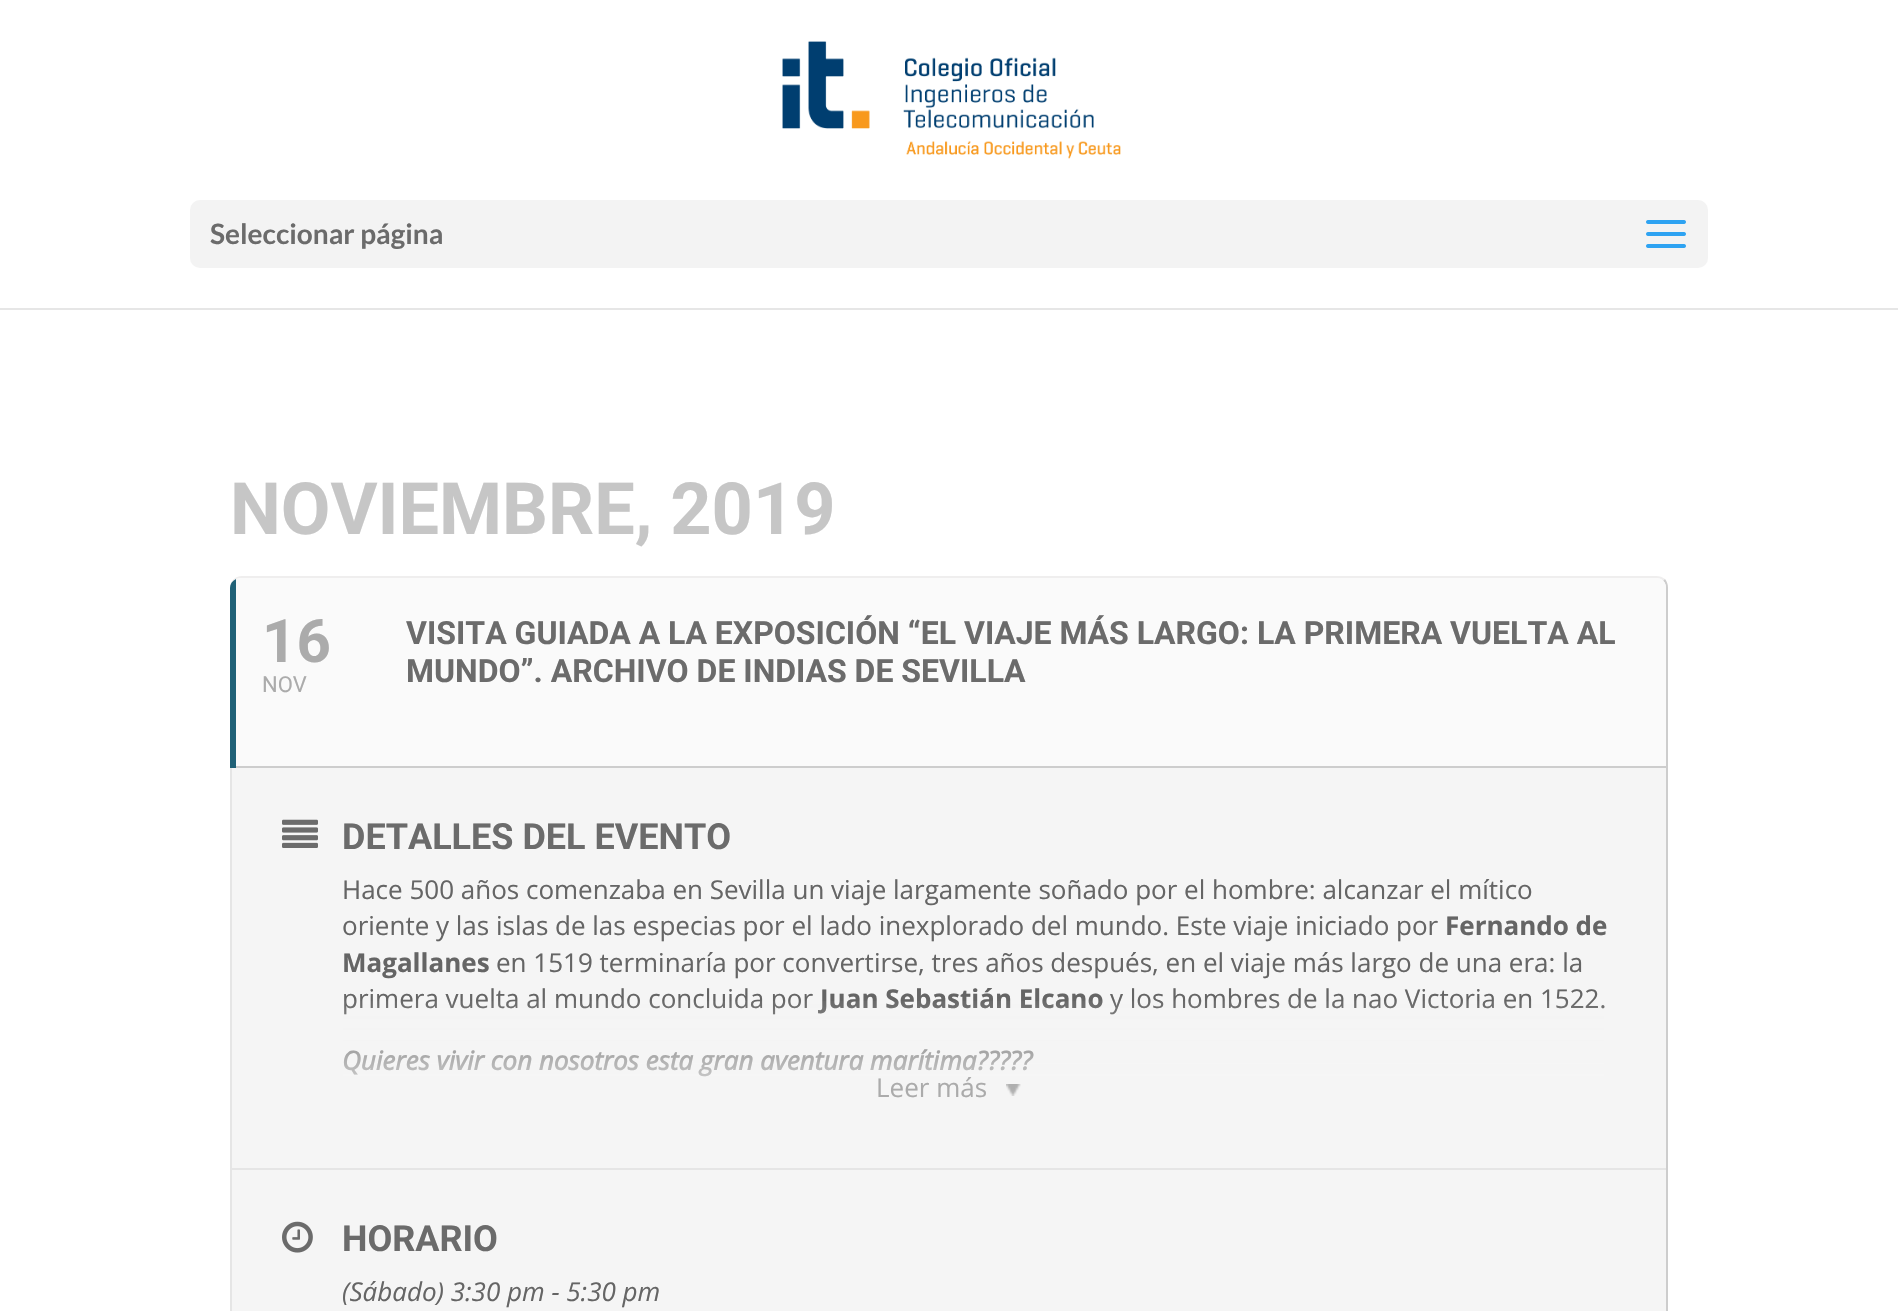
#include "include/core/SkBlurTypes.h"
#include "include/core/SkCanvas.h"
#include "include/core/SkData.h"
#include "include/core/SkFont.h"
#include "include/core/SkFontMgr.h"
#include "include/core/SkImage.h"
#include "include/core/SkMaskFilter.h"
#include "include/core/SkPaint.h"
#include "include/core/SkPathBuilder.h"
#include "include/core/SkTextBlob.h"
#include "include/effects/SkDashPathEffect.h"
#include "include/effects/SkGradientShader.h"
#include "include/utils/SkParsePath.h"

extern sk_sp<SkFontMgr> fontMgr;

void draw(SkCanvas* canvas) {
  SkPaint p;
  p.setAntiAlias(true);
  canvas->clear(SK_ColorWHITE);
  p.setColor(SkColorSetRGB(230, 230, 230));
  canvas->drawRect(SkRect::MakeLTRB(0, 308, 1898, 310), p);
  canvas->drawImageRect(SkImages::DeferredFromEncodedData(SkData::MakeFromFileName("images/1.png")), SkRect::MakeLTRB(782, 41, 1121, 159), SkSamplingOptions());
  p.setColor(SkColorSetRGB(243, 243, 243));
  canvas->drawRoundRect(SkRect::MakeLTRB(190, 200, 1708, 268), 10, 10, p);
  canvas->drawImageRect(SkImages::DeferredFromEncodedData(SkData::MakeFromFileName("images/2.png")), SkRect::MakeLTRB(1646, 220, 1686, 248), SkSamplingOptions());
  p.setColor(SkColorSetRGB(239, 238, 238));
  canvas->drawPath(SkPathBuilder().moveTo(242, 576).lineTo(1656, 576).cubicTo(1660, 576, 1662, 577, 1665, 579).lineTo(1663, 581).cubicTo(1662, 579, 1659, 578, 1656, 578).lineTo(242, 578).cubicTo(235, 578, 230, 582, 230, 588).cubicTo(230, 581, 235, 576, 242, 576).close().detach(), p);
  p.setColor(SkColorSetRGB(205, 205, 205));
  canvas->drawPath(SkPathBuilder().moveTo(1665, 579).lineTo(1663, 581).cubicTo(1665, 582, 1666, 585, 1666, 588).lineTo(1666, 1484).cubicTo(1666, 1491, 1662, 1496, 1656, 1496).cubicTo(1663, 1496, 1668, 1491, 1668, 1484).lineTo(1668, 588).cubicTo(1668, 584, 1667, 582, 1665, 579).close().detach(), p);
  p.setColor(SkColorSetRGB(250, 250, 250));
  canvas->drawPath(SkPathBuilder().moveTo(242, 578).cubicTo(235, 578, 230, 582, 230, 588).lineTo(230, 768).lineTo(1666, 768).lineTo(1666, 588).cubicTo(1666, 582, 1662, 578, 1656, 578).close().detach(), p);
  p.setColor(SkColorSetRGB(32, 97, 119));
  canvas->drawPath(SkPathBuilder().moveTo(236, 579).cubicTo(232, 581, 230, 584, 230, 588).lineTo(230, 768).lineTo(236, 768).close().detach(), p);
  p.setColor(SkColorSetRGB(205, 205, 205));
  canvas->drawRect(SkRect::MakeLTRB(236, 766, 1666, 768), p);
  p.setColor(SkColorSetRGB(245, 245, 245));
  canvas->drawPath(SkPathBuilder().moveTo(230, 768).lineTo(230, 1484).cubicTo(230, 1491, 235, 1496, 242, 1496).lineTo(1656, 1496).cubicTo(1662, 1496, 1666, 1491, 1666, 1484).lineTo(1666, 768).close().detach(), p);
  p.setColor(SkColorSetRGB(229, 229, 229));
  canvas->drawPath(SkPathBuilder().moveTo(230, 768).lineTo(230, 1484).cubicTo(230, 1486, 231, 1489, 232, 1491).lineTo(232, 768).close().detach(), p);
  canvas->drawRect(SkRect::MakeLTRB(232, 1168, 1666, 1170), p);
  canvas->drawImageRect(SkImages::DeferredFromEncodedData(SkData::MakeFromFileName("images/3.png")), SkRect::MakeLTRB(282, 819, 318, 848), SkSamplingOptions());
  canvas->drawImageRect(SkImages::DeferredFromEncodedData(SkData::MakeFromFileName("images/4.png")), SkRect::MakeLTRB(1006, 1084, 1021, 1096), SkSamplingOptions());
  canvas->drawImageRect(SkImages::DeferredFromEncodedData(SkData::MakeFromFileName("images/5.png")), SkRect::MakeLTRB(282, 1221, 313, 1253), SkSamplingOptions());
  SkFont font1(fontMgr->matchFamilyStyle("Lato", SkFontStyle::Bold()), 28);
  font1.setSubpixel(true);
  p.setColor(SkColorSetRGB(107, 107, 107));
  canvas->drawString("Seleccionar página", 210, 244, font1, p);
  SkFont font2(fontMgr->matchFamilyStyle("Roboto", SkFontStyle::Bold()), 72);
  font2.setSubpixel(true);
  p.setColor(SkColorSetRGB(198, 198, 198));
  canvas->drawString("NOVIEMBRE, 2019", 230, 534, font2, p);
  SkFont font3(fontMgr->matchFamilyStyle("Roboto", SkFontStyle::Bold()), 60);
  font3.setSubpixel(true);
  p.setColor(SkColorSetRGB(171, 171, 171));
  canvas->drawString("16", 262, 662, font3, p);
  SkFont font4(fontMgr->matchFamilyStyle("Roboto", SkFontStyle::Normal()), 22);
  font4.setSubpixel(true);
  canvas->drawString("NOV", 262, 692, font4, p);
  SkFont font5(fontMgr->matchFamilyStyle("Roboto", SkFontStyle::Bold()), 32);
  font5.setSubpixel(true);
  p.setColor(SkColorSetRGB(107, 107, 107));
  canvas->drawString("VISITA GUIADA A LA EXPOSICIÓN “EL VIAJE MÁS LARGO: LA PRIMERA VUELTA AL", 406, 644, font5, p);
  canvas->drawString("MUNDO”. ARCHIVO DE INDIAS DE SEVILLA", 406, 682, font5, p);
  SkFont font6(fontMgr->matchFamilyStyle("Roboto", SkFontStyle::Bold()), 36);
  font6.setSubpixel(true);
  canvas->drawString("DETALLES DEL EVENTO", 342, 849, font6, p);
  SkFont font7(fontMgr->matchFamilyStyle("Open Sans", SkFontStyle::Normal()), 26);
  font7.setSubpixel(true);
  p.setColor(SkColorSetRGB(101, 101, 101));
  canvas->drawString("Hace 500 años comenzaba en Sevilla un viaje largamente soñado por el hombre: alcanzar el mítico", 342, 899, font7, p);
  canvas->drawString("oriente y las islas de las especias por el lado inexplorado del mundo. Este viaje iniciado por", 342, 935, font7, p);
  SkFont font8(fontMgr->matchFamilyStyle("Open Sans", SkFontStyle::Bold()), 26);
  font8.setSubpixel(true);
  canvas->drawString("Fernando de", 1445, 935, font8, p);
  canvas->drawString("Magallanes", 342, 972, font8, p);
  canvas->drawString("en 1519 terminaría por convertirse, tres años después, en el viaje más largo de una era: la", 496, 972, font7, p);
  canvas->drawString("primera vuelta al mundo concluida por", 342, 1008, font7, p);
  canvas->drawString("Juan Sebastián Elcano", 820, 1008, font8, p);
  canvas->drawString("y los hombres de la nao Victoria en 1522.", 1110, 1008, font7, p);
  SkFont font9(fontMgr->matchFamilyStyle("Open Sans", SkFontStyle::BoldItalic()), 26);
  font9.setSubpixel(true);
  canvas->drawString("Quieres vivir con nosotros esta gran aventura marítima?\077?\077?", 342, 1070, font9, p);
  {
    const SkColor colors[] = {SkColorSetARGB(0, 245, 245, 245), SkColorSetARGB(3, 245, 245, 245), SkColorSetRGB(245, 245, 245)};
    const float stops[] = {0, 0.01f, 1};
    const SkPoint ends[] = {{949, 998}, {949, 1118}};
    p.setShader(SkGradientShader::MakeLinear(ends, colors, stops, 3, SkTileMode::kClamp));
    p.setAlpha(255);
  }
  canvas->drawRect(SkRect::MakeLTRB(343, 1001, 1604, 1077), p);
  p.setShader(nullptr);
  p.setColor(SkColorSetRGB(171, 171, 171));
  canvas->drawString("Leer más", 876, 1097, font7, p);
  p.setColor(SkColorSetRGB(107, 107, 107));
  canvas->drawString("HORARIO", 342, 1251, font6, p);
  SkFont font10(fontMgr->matchFamilyStyle("Open Sans", SkFontStyle::Italic()), 26);
  font10.setSubpixel(true);
  p.setColor(SkColorSetRGB(101, 101, 101));
  canvas->drawString("(Sábado) 3:30 pm - 5:30 pm", 342, 1301, font10, p);
}
